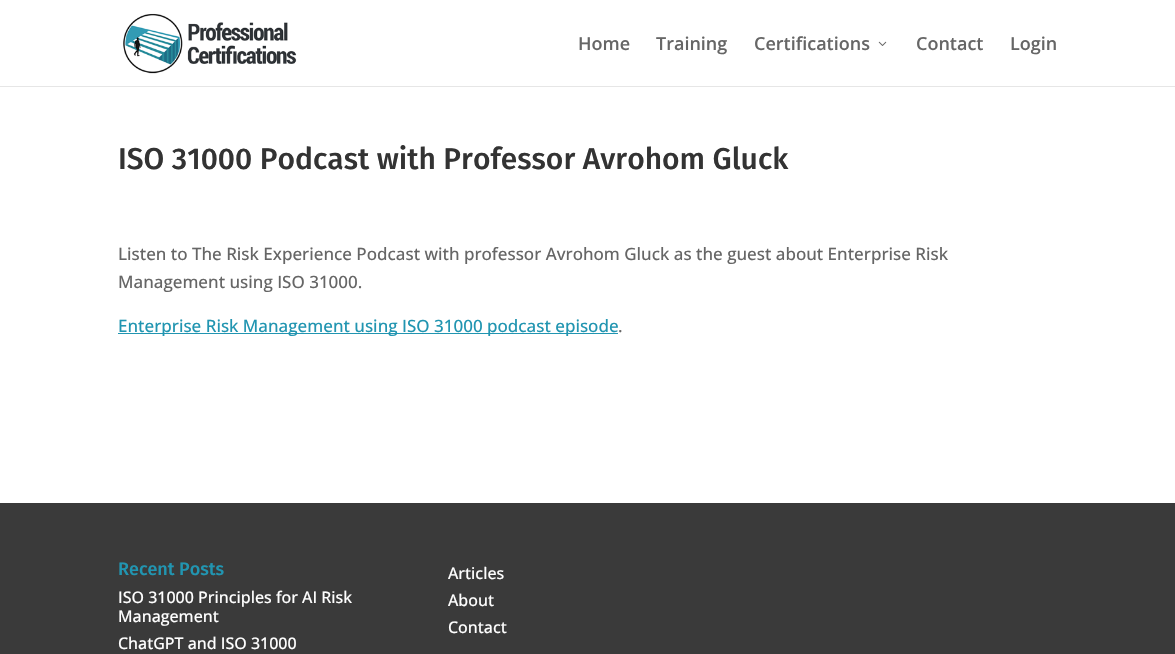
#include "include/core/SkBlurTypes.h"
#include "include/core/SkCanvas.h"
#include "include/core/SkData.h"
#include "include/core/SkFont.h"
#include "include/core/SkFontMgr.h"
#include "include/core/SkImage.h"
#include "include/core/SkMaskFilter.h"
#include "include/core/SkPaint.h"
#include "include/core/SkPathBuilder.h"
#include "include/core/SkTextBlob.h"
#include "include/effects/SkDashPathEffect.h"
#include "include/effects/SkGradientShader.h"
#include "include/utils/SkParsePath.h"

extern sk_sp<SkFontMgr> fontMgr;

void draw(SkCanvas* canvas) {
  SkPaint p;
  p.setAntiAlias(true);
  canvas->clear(SK_ColorWHITE);
  p.setColor(SkColorSetRGB(230, 230, 230));
  canvas->drawRect(SkRect::MakeLTRB(0, 86, 1175, 87), p);
  canvas->drawImageRect(SkImages::DeferredFromEncodedData(SkData::MakeFromFileName("images/1.png")), SkRect::MakeLTRB(123, 13, 297, 74), SkSamplingOptions());
  canvas->drawImageRect(SkImages::DeferredFromEncodedData(SkData::MakeFromFileName("images/2.png")), SkRect::MakeLTRB(878, 41, 887, 46), SkSamplingOptions());
  p.setColor(SkColorSetRGB(33, 149, 177));
  canvas->drawRect(SkRect::MakeLTRB(118, 333, 618, 334), p);
  p.setColor(SkColorSetRGB(58, 58, 58));
  canvas->drawRect(SkRect::MakeLTRB(0, 503, 1175, 654), p);
  SkFont font1(fontMgr->matchFamilyStyle("Open Sans", SkFontStyle(600, SkFontStyle::kNormal_Width, SkFontStyle::kUpright_Slant)), 18);
  font1.setSubpixel(true);
  p.setColor(SkColorSetRGB(102, 102, 102));
  canvas->drawString("Home", 578, 50, font1, p);
  canvas->drawString("Training", 656, 50, font1, p);
  canvas->drawString("Certifications", 754, 50, font1, p);
  canvas->drawString("Contact", 916, 50, font1, p);
  canvas->drawString("Login", 1010, 50, font1, p);
  SkFont font2(fontMgr->matchFamilyStyle("Fira Sans", SkFontStyle(500, SkFontStyle::kNormal_Width, SkFontStyle::kUpright_Slant)), 30);
  font2.setSubpixel(true);
  p.setColor(SkColorSetRGB(51, 51, 51));
  canvas->drawString("ISO 31000 Podcast with Professor Avrohom Gluck", 118, 169, font2, p);
  SkFont font3(fontMgr->matchFamilyStyle("Open Sans", SkFontStyle(500, SkFontStyle::kNormal_Width, SkFontStyle::kUpright_Slant)), 17);
  font3.setSubpixel(true);
  p.setColor(SkColorSetRGB(102, 102, 102));
  canvas->drawString("Listen to The Risk Experience Podcast with professor Avrohom Gluck as the guest about Enterprise Risk", 118, 260, font3, p);
  canvas->drawString("Management using ISO 31000.", 118, 288, font3, p);
  p.setColor(SkColorSetRGB(33, 149, 177));
  canvas->drawString("Enterprise Risk Management using ISO 31000 podcast episode", 118, 332, font3, p);
  p.setColor(SkColorSetRGB(102, 102, 102));
  canvas->drawString(".", 618, 332, font3, p);
  SkFont font4(fontMgr->matchFamilyStyle("Fira Sans", SkFontStyle(500, SkFontStyle::kNormal_Width, SkFontStyle::kUpright_Slant)), 18);
  font4.setSubpixel(true);
  p.setColor(SkColorSetRGB(33, 149, 177));
  canvas->drawString("Recent Posts", 118, 575, font4, p);
  SkFont font5(fontMgr->matchFamilyStyle("Open Sans", SkFontStyle(500, SkFontStyle::kNormal_Width, SkFontStyle::kUpright_Slant)), 16);
  font5.setSubpixel(true);
  p.setColor(SK_ColorWHITE);
  canvas->drawString("ISO 31000 Principles for AI Risk", 118, 603, font5, p);
  canvas->drawString("Management", 118, 622, font5, p);
  canvas->drawString("ChatGPT and ISO 31000", 118, 649, font5, p);
  canvas->drawString("Articles", 448, 579, font5, p);
  canvas->drawString("About", 448, 606, font5, p);
  canvas->drawString("Contact", 448, 633, font5, p);
}
